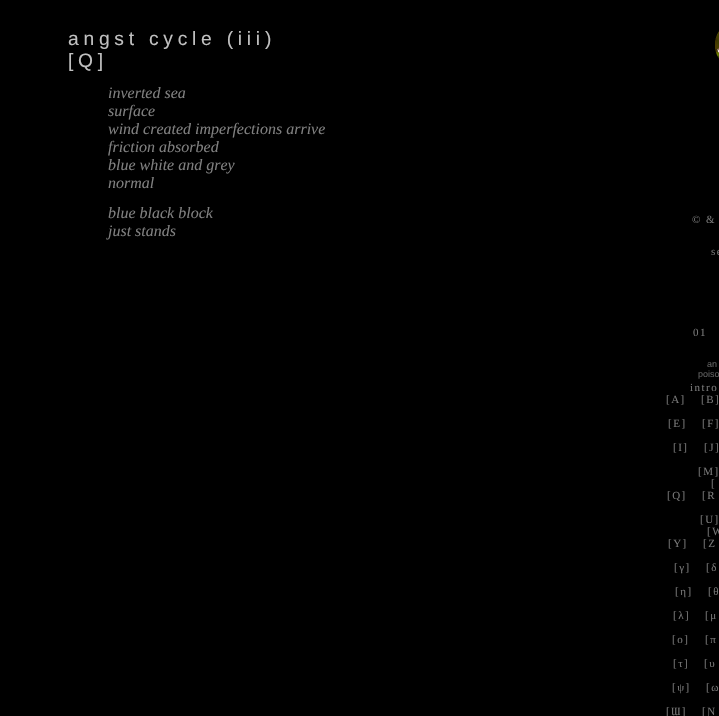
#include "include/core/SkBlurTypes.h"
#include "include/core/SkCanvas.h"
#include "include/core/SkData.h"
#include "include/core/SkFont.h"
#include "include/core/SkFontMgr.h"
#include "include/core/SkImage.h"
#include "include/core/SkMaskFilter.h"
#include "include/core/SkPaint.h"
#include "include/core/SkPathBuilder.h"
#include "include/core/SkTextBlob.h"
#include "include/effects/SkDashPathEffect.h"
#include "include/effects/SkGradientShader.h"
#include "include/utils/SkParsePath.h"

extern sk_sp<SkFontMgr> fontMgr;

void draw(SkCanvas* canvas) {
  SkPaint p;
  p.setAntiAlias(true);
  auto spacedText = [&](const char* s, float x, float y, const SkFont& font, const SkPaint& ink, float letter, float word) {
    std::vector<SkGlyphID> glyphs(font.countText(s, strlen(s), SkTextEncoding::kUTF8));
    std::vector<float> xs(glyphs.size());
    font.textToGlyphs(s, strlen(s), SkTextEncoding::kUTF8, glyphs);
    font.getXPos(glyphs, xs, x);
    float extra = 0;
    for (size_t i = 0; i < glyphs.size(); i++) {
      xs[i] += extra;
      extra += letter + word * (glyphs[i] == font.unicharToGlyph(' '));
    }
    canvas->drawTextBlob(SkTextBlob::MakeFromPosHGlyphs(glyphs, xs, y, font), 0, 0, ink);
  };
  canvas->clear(SK_ColorBLACK);
  canvas->drawImageRect(SkImages::DeferredFromEncodedData(SkData::MakeFromFileName("images/1.png")), SkRect::MakeLTRB(715, 31, 719, 59), SkSamplingOptions());
  SkFont font1(fontMgr->matchFamilyStyle("Liberation Sans", SkFontStyle::Normal()), 19.25f);
  font1.setSubpixel(true);
  p.setColor(SkColorSetRGB(192, 192, 192));
  spacedText("angst cycle (iii)", 68, 45, font1, p, 4.75f, 0);
  spacedText("[Q]", 68, 67, font1, p, 4.75f, 0);
  SkFont font2(fontMgr->matchFamilyStyle("Liberation Serif", SkFontStyle::Italic()), 16);
  font2.setSubpixel(true);
  p.setColor(SkColorSetRGB(128, 128, 128));
  canvas->drawString("inverted sea", 108, 98, font2, p);
  canvas->drawString("surface", 108, 116, font2, p);
  canvas->drawString("wind created imperfections arrive", 108, 134, font2, p);
  canvas->drawString("friction absorbed", 108, 152, font2, p);
  canvas->drawString("blue white and grey", 108, 170, font2, p);
  canvas->drawString("normal", 108, 188, font2, p);
  canvas->drawString("blue black block", 108, 218, font2, p);
  canvas->drawString("just stands", 108, 236, font2, p);
  SkFont font3(fontMgr->matchFamilyStyle("Liberation Serif", SkFontStyle::Normal()), 11);
  font3.setSubpixel(true);
  p.setColor(SkColorSetRGB(119, 119, 119));
  spacedText("© &", 692, 223, font3, p, 1.5f, 0);
  spacedText("se", 711, 255, font3, p, 1.5f, 0);
  spacedText("01", 693, 336, font3, p, 1.5f, 0);
  SkFont font4(fontMgr->matchFamilyStyle("Liberation Sans", SkFontStyle::Normal()), 9);
  font4.setSubpixel(true);
  p.setColor(SkColorSetRGB(96, 96, 96));
  canvas->drawString("an", 707, 367, font4, p);
  canvas->drawString("poiso", 698, 377, font4, p);
  p.setColor(SkColorSetRGB(119, 119, 119));
  spacedText("intro", 690, 391, font3, p, 1.5f, 0);
  spacedText("[A]", 666, 403, font3, p, 1.5f, 0);
  spacedText("[B]", 701, 403, font3, p, 1.5f, 0);
  spacedText("[E]", 668, 427, font3, p, 1.5f, 0);
  spacedText("[F]", 702, 427, font3, p, 1.5f, 0);
  spacedText("[I]", 673, 451, font3, p, 1.5f, 0);
  spacedText("[J]", 704, 451, font3, p, 1.5f, 0);
  spacedText("[M]", 698, 475, font3, p, 1.5f, 0);
  spacedText("[", 711, 487, font3, p, 1.5f, 0);
  spacedText("[Q]", 667, 499, font3, p, 1.5f, 0);
  spacedText("[R", 702, 499, font3, p, 1.5f, 0);
  spacedText("[U]", 700, 523, font3, p, 1.5f, 0);
  spacedText("[W", 707, 535, font3, p, 1.5f, 0);
  spacedText("[Y]", 668, 547, font3, p, 1.5f, 0);
  spacedText("[Z", 703, 547, font3, p, 1.5f, 0);
  spacedText("[γ]", 674, 571, font3, p, 1.5f, 0);
  spacedText("[δ", 706, 571, font3, p, 1.5f, 0);
  spacedText("[η]", 675, 595, font3, p, 1.5f, 0);
  spacedText("[θ", 708, 595, font3, p, 1.5f, 0);
  spacedText("[λ]", 673, 619, font3, p, 1.5f, 0);
  spacedText("[μ", 705, 619, font3, p, 1.5f, 0);
  spacedText("[ο]", 672, 643, font3, p, 1.5f, 0);
  spacedText("[π", 705, 643, font3, p, 1.5f, 0);
  spacedText("[τ]", 673, 667, font3, p, 1.5f, 0);
  spacedText("[υ", 704, 667, font3, p, 1.5f, 0);
  spacedText("[ψ]", 672, 691, font3, p, 1.5f, 0);
  spacedText("[ω", 706, 691, font3, p, 1.5f, 0);
  spacedText("[Ɯ]", 666, 715, font3, p, 1.5f, 0);
  spacedText("[Ɲ", 702, 715, font3, p, 1.5f, 0);
}
